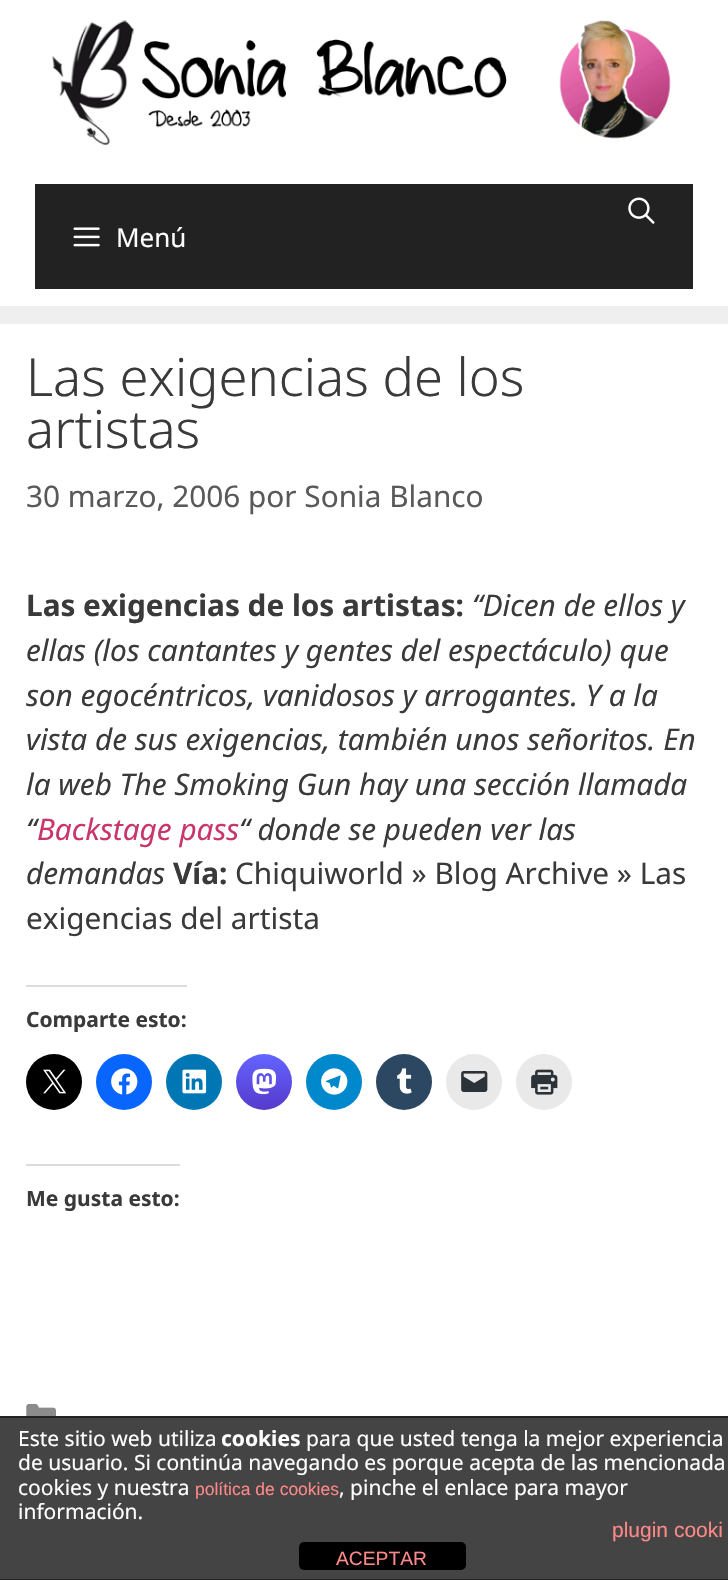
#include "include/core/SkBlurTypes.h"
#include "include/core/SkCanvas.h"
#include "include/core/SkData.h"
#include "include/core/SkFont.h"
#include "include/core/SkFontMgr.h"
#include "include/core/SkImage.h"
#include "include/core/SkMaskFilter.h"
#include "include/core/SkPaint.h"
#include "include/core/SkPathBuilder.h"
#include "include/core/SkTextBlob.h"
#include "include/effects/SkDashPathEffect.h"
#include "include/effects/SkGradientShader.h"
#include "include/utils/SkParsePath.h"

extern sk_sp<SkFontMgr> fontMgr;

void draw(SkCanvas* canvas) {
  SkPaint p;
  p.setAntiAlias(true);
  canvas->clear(SkColorSetRGB(239, 239, 239));
  p.setColor(SK_ColorWHITE);
  canvas->drawRect(SkRect::MakeLTRB(0, 0, 728, 306), p);
  canvas->drawImageRect(SkImages::DeferredFromEncodedData(SkData::MakeFromFileName("images/1.png")), SkRect::MakeLTRB(52, 20, 671, 145), SkSamplingOptions());
  p.setColor(SkColorSetRGB(34, 34, 34));
  canvas->drawRect(SkRect::MakeLTRB(35, 184, 693, 289), p);
  canvas->drawImageRect(SkImages::DeferredFromEncodedData(SkData::MakeFromFileName("images/2.png")), SkRect::MakeLTRB(628, 197, 655, 224), SkSamplingOptions());
  canvas->drawImageRect(SkImages::DeferredFromEncodedData(SkData::MakeFromFileName("images/3.png")), SkRect::MakeLTRB(73, 227, 100, 247), SkSamplingOptions());
  p.setColor(SK_ColorWHITE);
  canvas->drawRect(SkRect::MakeLTRB(0, 324, 728, 1416), p);
  p.setColor(SkColorSetRGB(220, 220, 222));
  canvas->drawRect(SkRect::MakeLTRB(26, 985, 187, 987), p);
  p.setColor(SK_ColorBLACK);
  canvas->drawCircle(54, 1082, 28, p);
  canvas->drawImageRect(SkImages::DeferredFromEncodedData(SkData::MakeFromFileName("images/4.png")), SkRect::MakeLTRB(43, 1069, 67, 1094), SkSamplingOptions());
  p.setColor(SkColorSetRGB(8, 102, 255));
  canvas->drawCircle(124, 1082, 28, p);
  canvas->drawImageRect(SkImages::DeferredFromEncodedData(SkData::MakeFromFileName("images/5.png")), SkRect::MakeLTRB(111, 1068, 138, 1095), SkSamplingOptions());
  p.setColor(SkColorSetRGB(0, 119, 181));
  canvas->drawCircle(194, 1082, 28, p);
  canvas->drawImageRect(SkImages::DeferredFromEncodedData(SkData::MakeFromFileName("images/6.png")), SkRect::MakeLTRB(182, 1069, 207, 1094), SkSamplingOptions());
  {
    const SkColor colors[] = {SkColorSetRGB(86, 58, 204), SkColorSetRGB(99, 100, 255)};
    const float stops[] = {0, 1};
    const SkPoint ends[] = {{264, 1110}, {264, 1054}};
    p.setShader(SkGradientShader::MakeLinear(ends, colors, stops, 2, SkTileMode::kClamp));
    p.setAlpha(255);
  }
  canvas->drawCircle(264, 1082, 28, p);
  canvas->drawImageRect(SkImages::DeferredFromEncodedData(SkData::MakeFromFileName("images/7.png")), SkRect::MakeLTRB(252, 1068, 277, 1095), SkSamplingOptions());
  p.setShader(nullptr);
  p.setColor(SkColorSetRGB(0, 136, 204));
  canvas->drawCircle(334, 1082, 28, p);
  canvas->drawImageRect(SkImages::DeferredFromEncodedData(SkData::MakeFromFileName("images/8.png")), SkRect::MakeLTRB(321, 1068, 348, 1095), SkSamplingOptions());
  p.setColor(SkColorSetRGB(44, 71, 98));
  canvas->drawCircle(404, 1082, 28, p);
  canvas->drawImageRect(SkImages::DeferredFromEncodedData(SkData::MakeFromFileName("images/9.png")), SkRect::MakeLTRB(397, 1068, 412, 1094), SkSamplingOptions());
  p.setColor(SkColorSetRGB(233, 233, 233));
  canvas->drawCircle(474, 1082, 28, p);
  canvas->drawImageRect(SkImages::DeferredFromEncodedData(SkData::MakeFromFileName("images/10.png")), SkRect::MakeLTRB(461, 1071, 488, 1092), SkSamplingOptions());
  canvas->drawCircle(544, 1082, 28, p);
  canvas->drawImageRect(SkImages::DeferredFromEncodedData(SkData::MakeFromFileName("images/11.png")), SkRect::MakeLTRB(531, 1069, 558, 1095), SkSamplingOptions());
  p.setColor(SkColorSetRGB(220, 220, 222));
  canvas->drawRect(SkRect::MakeLTRB(26, 1164, 180, 1166), p);
  canvas->drawImageRect(SkImages::DeferredFromEncodedData(SkData::MakeFromFileName("images/12.png")), SkRect::MakeLTRB(26, 1403, 56, 1416), SkSamplingOptions());
  p.setColor(SkColorSetRGB(68, 68, 68));
  canvas->drawRect(SkRect::MakeLTRB(0, 1418, 728, 1579), p);
  p.setColor(SkColorSetRGB(34, 34, 34));
  canvas->drawRect(SkRect::MakeLTRB(0, 1416, 728, 1418), p);
  canvas->drawRect(SkRect::MakeLTRB(0, 1579, 728, 1580), p);
  p.setColor(SK_ColorBLACK);
  canvas->drawRoundRect(SkRect::MakeLTRB(299, 1542, 466, 1570), 5, 5, p);
  SkFont font1(fontMgr->matchFamilyStyle("Noto Sans", SkFontStyle::Normal()), 26);
  font1.setSubpixel(true);
  p.setColor(SK_ColorWHITE);
  canvas->drawString("Menú", 116, 247, font1, p);
  SkFont font2(fontMgr->matchFamilyStyle("Noto Sans", SkFontStyle(300, SkFontStyle::kNormal_Width, SkFontStyle::kUpright_Slant)), 52.5f);
  font2.setSubpixel(true);
  p.setColor(SkColorSetRGB(58, 58, 58));
  canvas->drawString("Las exigencias de los", 26, 396, font2, p);
  canvas->drawString("artistas", 26, 448, font2, p);
  SkFont font3(fontMgr->matchFamilyStyle("Noto Sans", SkFontStyle::Normal()), 29.75f);
  font3.setSubpixel(true);
  p.setColor(SkColorSetRGB(89, 89, 89));
  canvas->drawString("30 marzo, 2006 por Sonia Blanco", 26, 507, font3, p);
  SkFont font4(fontMgr->matchFamilyStyle("Noto Sans", SkFontStyle::Bold()), 29.75f);
  font4.setSubpixel(true);
  p.setColor(SkColorSetRGB(58, 58, 58));
  canvas->drawString("Las exigencias de los artistas:", 26, 616, font4, p);
  SkFont font5(fontMgr->matchFamilyStyle("Noto Sans", SkFontStyle::Italic()), 29.75f);
  font5.setSubpixel(true);
  canvas->drawString("“Dicen de ellos y", 472, 616, font5, p);
  canvas->drawString("ellas (los cantantes y gentes del espectáculo) que", 26, 661, font5, p);
  canvas->drawString("son egocéntricos, vanidosos y arrogantes. Y a la", 26, 706, font5, p);
  canvas->drawString("vista de sus exigencias, también unos señoritos. En", 26, 750, font5, p);
  canvas->drawString("la web The Smoking Gun hay una sección llamada", 26, 795, font5, p);
  canvas->drawString("“", 26, 840, font5, p);
  p.setColor(SkColorSetRGB(201, 54, 108));
  canvas->drawString("Backstage pass", 37, 840, font5, p);
  p.setColor(SkColorSetRGB(58, 58, 58));
  canvas->drawString("“ donde se pueden ver las", 239, 840, font5, p);
  canvas->drawString("demandas", 26, 884, font5, p);
  canvas->drawString("Vía:", 173, 884, font4, p);
  canvas->drawString("Chiquiworld » Blog Archive » Las", 235, 884, font3, p);
  canvas->drawString("exigencias del artista", 26, 929, font3, p);
  SkFont font6(fontMgr->matchFamilyStyle("Noto Sans", SkFontStyle::Bold()), 21);
  font6.setSubpixel(true);
  canvas->drawString("Comparte esto:", 26, 1027, font6, p);
  canvas->drawString("Me gusta esto:", 26, 1206, font6, p);
  SkFont font7(fontMgr->matchFamilyStyle("Noto Sans", SkFontStyle::Normal()), 21);
  font7.setSubpixel(true);
  p.setColor(SK_ColorWHITE);
  canvas->drawString("Este sitio web utiliza", 18, 1446, font7, p);
  canvas->drawString("cookies", 221, 1446, font6, p);
  canvas->drawString("para que usted tenga la mejor experiencia", 306, 1446, font7, p);
  canvas->drawString("de usuario. Si continúa navegando es porque acepta de las mencionada", 18, 1470, font7, p);
  canvas->drawString("cookies y nuestra", 18, 1495, font7, p);
  SkFont font8(fontMgr->matchFamilyStyle("Liberation Sans", SkFontStyle::Normal()), 17.5f);
  font8.setSubpixel(true);
  p.setColor(SkColorSetRGB(255, 136, 136));
  canvas->drawString("política de cookies", 195, 1495, font8, p);
  p.setColor(SK_ColorWHITE);
  canvas->drawString(", pinche el enlace para mayor", 339, 1495, font7, p);
  canvas->drawString("información.", 18, 1519, font7, p);
  SkFont font9(fontMgr->matchFamilyStyle("Liberation Sans", SkFontStyle::Normal()), 21);
  font9.setSubpixel(true);
  p.setColor(SkColorSetRGB(255, 136, 136));
  canvas->drawString("plugin cooki", 612, 1537, font9, p);
  SkFont font10(fontMgr->matchFamilyStyle("Liberation Sans", SkFontStyle::Normal()), 19.25f);
  font10.setSubpixel(true);
  canvas->drawString("ACEPTAR", 336, 1565, font10, p);
}
